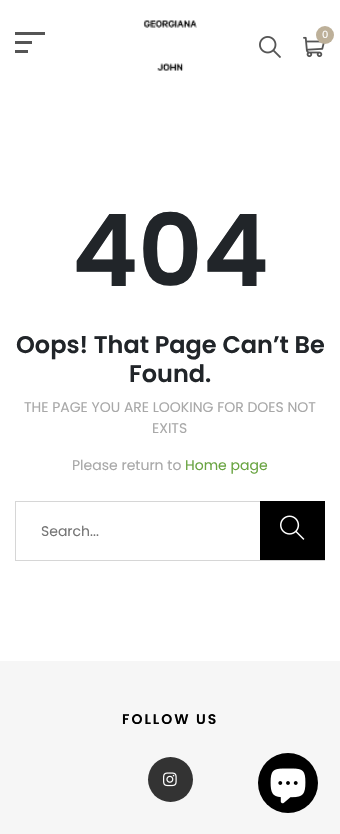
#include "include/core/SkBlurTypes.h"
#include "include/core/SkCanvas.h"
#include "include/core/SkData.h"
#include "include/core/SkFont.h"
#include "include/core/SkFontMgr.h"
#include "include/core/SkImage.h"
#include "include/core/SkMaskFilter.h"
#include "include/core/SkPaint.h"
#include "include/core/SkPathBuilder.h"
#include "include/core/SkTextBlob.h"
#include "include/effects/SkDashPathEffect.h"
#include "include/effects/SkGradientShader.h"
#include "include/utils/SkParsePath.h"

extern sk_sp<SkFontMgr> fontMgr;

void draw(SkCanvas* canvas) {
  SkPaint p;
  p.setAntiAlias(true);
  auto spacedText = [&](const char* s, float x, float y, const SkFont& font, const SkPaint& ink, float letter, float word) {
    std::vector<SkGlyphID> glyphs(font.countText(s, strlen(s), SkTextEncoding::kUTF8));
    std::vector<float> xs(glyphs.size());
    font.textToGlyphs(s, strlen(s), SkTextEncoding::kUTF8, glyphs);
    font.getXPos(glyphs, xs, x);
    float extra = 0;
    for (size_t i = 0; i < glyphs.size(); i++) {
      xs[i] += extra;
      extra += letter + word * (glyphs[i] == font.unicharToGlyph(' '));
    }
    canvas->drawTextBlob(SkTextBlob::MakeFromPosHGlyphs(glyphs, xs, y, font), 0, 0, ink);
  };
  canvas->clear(SK_ColorWHITE);
  p.setColor(SkColorSetRGB(85, 85, 85));
  canvas->drawRect(SkRect::MakeLTRB(15, 32, 45, 35), p);
  canvas->drawRect(SkRect::MakeLTRB(15, 41, 32, 44), p);
  canvas->drawRect(SkRect::MakeLTRB(15, 50, 28, 53), p);
  canvas->drawImageRect(SkImages::DeferredFromEncodedData(SkData::MakeFromFileName("images/1.png")), SkRect::MakeLTRB(143, 20, 197, 71), SkSamplingOptions());
  canvas->drawImageRect(SkImages::DeferredFromEncodedData(SkData::MakeFromFileName("images/2.png")), SkRect::MakeLTRB(303, 36, 325, 58), SkSamplingOptions());
  p.setColor(SkColorSetRGB(189, 176, 153));
  canvas->drawCircle(325, 35, 9, p);
  canvas->drawImageRect(SkImages::DeferredFromEncodedData(SkData::MakeFromFileName("images/3.png")), SkRect::MakeLTRB(259, 36, 281, 58), SkSamplingOptions());
  p.setStyle(SkPaint::kStroke_Style);
  p.setStrokeWidth(1);
  p.setColor(SkColorSetRGB(214, 214, 214));
  canvas->drawRect(SkRect::MakeLTRB(15.5f, 501.5f, 324.5f, 560.5f), p);
  p.setStyle(SkPaint::kFill_Style);
  p.setColor(SK_ColorBLACK);
  canvas->drawRect(SkRect::MakeLTRB(260, 501, 325, 560), p);
  canvas->drawImageRect(SkImages::DeferredFromEncodedData(SkData::MakeFromFileName("images/4.png")), SkRect::MakeLTRB(280, 515, 305, 540), SkSamplingOptions());
  p.setColor(SkColorSetRGB(246, 246, 246));
  canvas->drawRect(SkRect::MakeLTRB(0, 661, 340, 834), p);
  p.setColor(SkColorSetRGB(51, 51, 51));
  canvas->drawCircle(170.5f, 779.5f, 22.5f, p);
  canvas->drawImageRect(SkImages::DeferredFromEncodedData(SkData::MakeFromFileName("images/5.png")), SkRect::MakeLTRB(163, 772, 177, 787), SkSamplingOptions());
  p.setColor(SK_ColorBLACK);
  canvas->drawCircle(288, 783, 30, p);
  canvas->drawImageRect(SkImages::DeferredFromEncodedData(SkData::MakeFromFileName("images/6.png")), SkRect::MakeLTRB(270, 768, 306, 804), SkSamplingOptions());
  SkFont font1(fontMgr->matchFamilyStyle("Poppins", SkFontStyle::Normal()), 10);
  font1.setSubpixel(true);
  p.setColor(SK_ColorWHITE);
  canvas->drawString("0", 322, 38, font1, p);
  SkFont font2(fontMgr->matchFamilyStyle("Poppins", SkFontStyle(600, SkFontStyle::kNormal_Width, SkFontStyle::kUpright_Slant)), 100);
  font2.setSubpixel(true);
  p.setColor(SkColorSetRGB(33, 37, 41));
  canvas->drawString("404", 72, 286, font2, p);
  SkFont font3(fontMgr->matchFamilyStyle("Poppins", SkFontStyle(600, SkFontStyle::kNormal_Width, SkFontStyle::kUpright_Slant)), 24);
  font3.setSubpixel(true);
  canvas->drawString("Oops! That Page Can’t Be", 16, 353, font3, p);
  canvas->drawString("Found.", 129, 382, font3, p);
  SkFont font4(fontMgr->matchFamilyStyle("Poppins", SkFontStyle::Normal()), 14);
  font4.setSubpixel(true);
  p.setColor(SkColorSetRGB(168, 168, 168));
  canvas->drawString("THE PAGE YOU ARE LOOKING FOR DOES NOT", 24, 412, font4, p);
  canvas->drawString("EXITS", 152, 433, font4, p);
  canvas->drawString("Please return to", 72, 470, font4, p);
  p.setColor(SkColorSetRGB(105, 164, 65));
  canvas->drawString("Home page", 185, 470, font4, p);
  p.setColor(SkColorSetRGB(117, 117, 117));
  canvas->drawString("Search...", 41, 536, font4, p);
  SkFont font5(fontMgr->matchFamilyStyle("Poppins", SkFontStyle(600, SkFontStyle::kNormal_Width, SkFontStyle::kUpright_Slant)), 14);
  font5.setSubpixel(true);
  p.setColor(SK_ColorBLACK);
  spacedText("FOLLOW US", 122, 724, font5, p, 2, 0);
}
